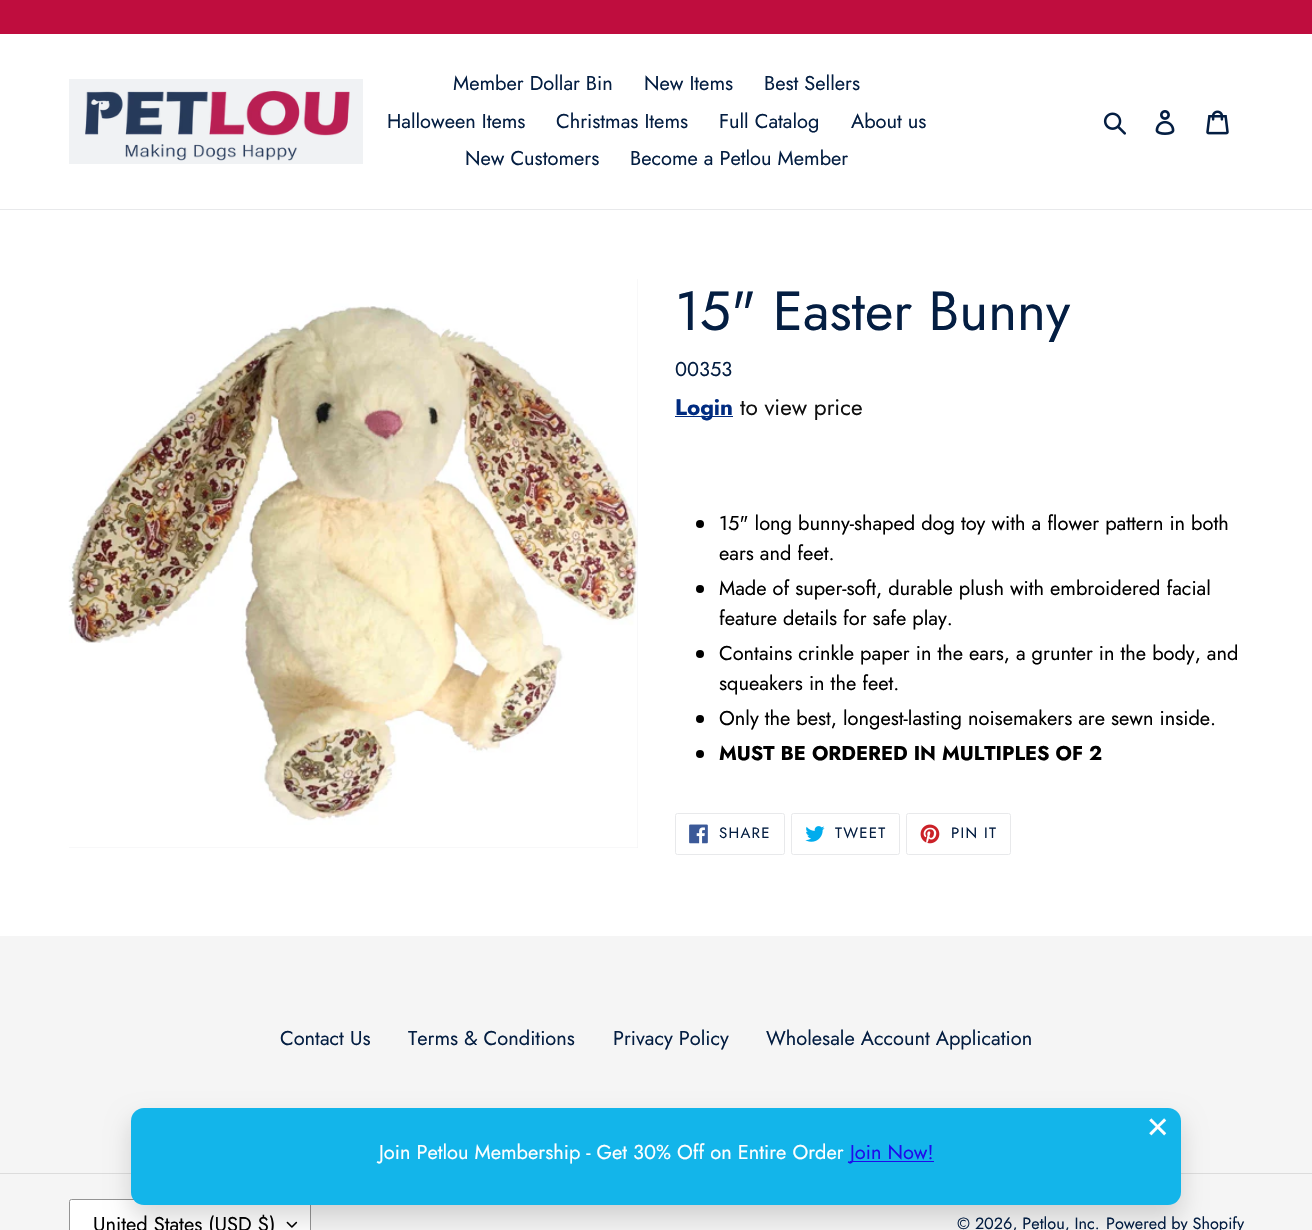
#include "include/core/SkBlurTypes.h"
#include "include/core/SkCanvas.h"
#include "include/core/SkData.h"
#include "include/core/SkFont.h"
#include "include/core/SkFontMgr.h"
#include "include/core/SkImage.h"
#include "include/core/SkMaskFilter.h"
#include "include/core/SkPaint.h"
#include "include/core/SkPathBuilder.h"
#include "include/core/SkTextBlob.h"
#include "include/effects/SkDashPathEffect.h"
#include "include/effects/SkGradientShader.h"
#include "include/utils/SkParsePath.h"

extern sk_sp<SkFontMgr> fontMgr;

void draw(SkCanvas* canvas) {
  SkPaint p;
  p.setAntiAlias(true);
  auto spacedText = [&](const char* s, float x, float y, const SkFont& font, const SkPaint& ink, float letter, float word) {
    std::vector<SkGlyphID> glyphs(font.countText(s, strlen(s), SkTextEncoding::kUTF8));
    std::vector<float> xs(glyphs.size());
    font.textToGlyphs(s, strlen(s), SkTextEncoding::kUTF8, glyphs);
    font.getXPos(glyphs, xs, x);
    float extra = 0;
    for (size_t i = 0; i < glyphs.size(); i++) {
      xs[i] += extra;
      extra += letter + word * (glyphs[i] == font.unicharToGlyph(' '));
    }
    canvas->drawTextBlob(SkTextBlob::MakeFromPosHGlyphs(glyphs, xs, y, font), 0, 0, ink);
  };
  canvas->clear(SK_ColorWHITE);
  p.setColor(SkColorSetRGB(191, 13, 62));
  canvas->drawRect(SkRect::MakeLTRB(0, 0, 1312, 34), p);
  p.setColor(SkColorSetRGB(232, 233, 235));
  canvas->drawRect(SkRect::MakeLTRB(0, 209, 1312, 210), p);
  p.setColor(SkColorSetRGB(240, 242, 244));
  canvas->drawRect(SkRect::MakeLTRB(69, 79, 363, 164), p);
  canvas->drawImageRect(SkImages::DeferredFromEncodedData(SkData::MakeFromFileName("images/1.png")), SkRect::MakeLTRB(85, 90, 350, 161), SkSamplingOptions());
  canvas->drawImageRect(SkImages::DeferredFromEncodedData(SkData::MakeFromFileName("images/2.png")), SkRect::MakeLTRB(1103, 112, 1126, 135), SkSamplingOptions());
  canvas->drawImageRect(SkImages::DeferredFromEncodedData(SkData::MakeFromFileName("images/3.png")), SkRect::MakeLTRB(1155, 110, 1175, 135), SkSamplingOptions());
  canvas->drawImageRect(SkImages::DeferredFromEncodedData(SkData::MakeFromFileName("images/4.png")), SkRect::MakeLTRB(1206, 110, 1229, 135), SkSamplingOptions());
  p.setColor(SkColorSetRGB(241, 242, 244));
  canvas->drawRect(SkRect::MakeLTRB(69, 279, 638, 848), p);
  canvas->drawImageRect(SkImages::DeferredFromEncodedData(SkData::MakeFromFileName("images/5.png")), SkRect::MakeLTRB(68, 279, 638, 848), SkSamplingOptions());
  p.setColor(SkColorSetRGB(0, 43, 128));
  canvas->drawRect(SkRect::MakeLTRB(675, 416, 733, 417), p);
  p.setColor(SK_ColorBLACK);
  canvas->drawCircle(700, 524, 4, p);
  canvas->drawCircle(700, 589, 4, p);
  canvas->drawCircle(700, 654, 4, p);
  canvas->drawCircle(700, 719, 4, p);
  canvas->drawCircle(700, 754, 4, p);
  p.setStyle(SkPaint::kStroke_Style);
  p.setStrokeWidth(1);
  p.setColor(SkColorSetRGB(232, 233, 235));
  canvas->drawRoundRect(SkRect::MakeLTRB(675.5f, 813.5f, 784.5f, 854.5f), 2, 2, p);
  canvas->drawImageRect(SkImages::DeferredFromEncodedData(SkData::MakeFromFileName("images/6.png")), SkRect::MakeLTRB(689, 824, 708, 844), SkSamplingOptions());
  canvas->drawRoundRect(SkRect::MakeLTRB(791.5f, 813.5f, 899.5f, 854.5f), 2, 2, p);
  canvas->drawImageRect(SkImages::DeferredFromEncodedData(SkData::MakeFromFileName("images/7.png")), SkRect::MakeLTRB(805, 826, 825, 842), SkSamplingOptions());
  canvas->drawRoundRect(SkRect::MakeLTRB(906.5f, 813.5f, 1010.5f, 854.5f), 2, 2, p);
  canvas->drawImageRect(SkImages::DeferredFromEncodedData(SkData::MakeFromFileName("images/8.png")), SkRect::MakeLTRB(920, 824, 940, 844), SkSamplingOptions());
  p.setStyle(SkPaint::kFill_Style);
  p.setColor(SkColorSetRGB(245, 245, 245));
  canvas->drawRect(SkRect::MakeLTRB(0, 936, 1312, 1230), p);
  p.setColor(SkColorSetRGB(220, 220, 220));
  canvas->drawRect(SkRect::MakeLTRB(0, 1173, 1312, 1174), p);
  p.setColor(SK_ColorWHITE);
  canvas->drawRoundRect(SkRect::MakeLTRB(69, 1199, 311, 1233), 2.5f, 2.5f, p);
  canvas->drawImageRect(SkImages::DeferredFromEncodedData(SkData::MakeFromFileName("images/9.png")), SkRect::MakeLTRB(286, 1221, 298, 1228), SkSamplingOptions());
  p.setStyle(SkPaint::kStroke_Style);
  p.setColor(SkColorSetRGB(148, 148, 148));
  canvas->drawRoundRect(SkRect::MakeLTRB(69.5f, 1199.5f, 310.5f, 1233.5f), 2, 2, p);
  p.setStyle(SkPaint::kFill_Style);
  p.setColor(SkColorSetARGB(38, 0, 0, 0));
  p.setMaskFilter(SkMaskFilter::MakeBlur(kNormal_SkBlurStyle, 12.5f));
  canvas->drawRoundRect(SkRect::MakeLTRB(131, 1120, 1181, 1218), 13, 13, p);
  p.setMaskFilter(nullptr);
  p.setColor(SkColorSetRGB(19, 181, 234));
  canvas->drawRoundRect(SkRect::MakeLTRB(131, 1108, 1181, 1205), 13, 13, p);
  p.setColor(SkColorSetRGB(30, 12, 235));
  canvas->drawRect(SkRect::MakeLTRB(850, 1161, 934, 1162), p);
  SkFont font1(fontMgr->matchFamilyStyle("Jost", SkFontStyle::Normal()), 20);
  font1.setSubpixel(true);
  p.setColor(SkColorSetRGB(4, 30, 66));
  canvas->drawString("Member Dollar Bin", 453, 90, font1, p);
  canvas->drawString("New Items", 644, 90, font1, p);
  canvas->drawString("Best Sellers", 764, 90, font1, p);
  canvas->drawString("Halloween Items", 387, 128, font1, p);
  canvas->drawString("Christmas Items", 556, 128, font1, p);
  canvas->drawString("Full Catalog", 719, 128, font1, p);
  canvas->drawString("About us", 851, 128, font1, p);
  canvas->drawString("New Customers", 465, 165, font1, p);
  canvas->drawString("Become a Petlou Member", 630, 165, font1, p);
  SkFont font2(fontMgr->matchFamilyStyle("Jost", SkFontStyle::Normal()), 55);
  font2.setSubpixel(true);
  canvas->drawString("15\" Easter Bunny", 675, 330, font2, p);
  canvas->drawString("00353", 675, 376, font1, p);
  SkFont font3(fontMgr->matchFamilyStyle("Jost", SkFontStyle::Bold()), 22.5f);
  font3.setSubpixel(true);
  p.setColor(SkColorSetRGB(0, 43, 128));
  canvas->drawString("Login", 675, 415, font3, p);
  SkFont font4(fontMgr->matchFamilyStyle("Jost", SkFontStyle::Normal()), 22.5f);
  font4.setSubpixel(true);
  p.setColor(SkColorSetRGB(17, 17, 17));
  canvas->drawString("to view price", 740, 415, font4, p);
  p.setColor(SK_ColorBLACK);
  canvas->drawString("15\" long bunny-shaped dog toy with a flower pattern in both", 719, 530, font1, p);
  canvas->drawString("ears and feet.", 719, 560, font1, p);
  canvas->drawString("Made of super-soft, durable plush with embroidered facial", 719, 595, font1, p);
  canvas->drawString("feature details for safe play.", 719, 625, font1, p);
  canvas->drawString("Contains crinkle paper in the ears, a grunter in the body, and", 719, 660, font1, p);
  canvas->drawString("squeakers in the feet.", 719, 690, font1, p);
  canvas->drawString("Only the best, longest-lasting noisemakers are sewn inside.", 719, 725, font1, p);
  SkFont font5(fontMgr->matchFamilyStyle("Jost", SkFontStyle::Bold()), 20);
  font5.setSubpixel(true);
  canvas->drawString("MUST BE ORDERED IN MULTIPLES OF 2", 719, 760, font5, p);
  SkFont font6(fontMgr->matchFamilyStyle("Jost", SkFontStyle::Normal()), 15);
  font6.setSubpixel(true);
  p.setColor(SkColorSetRGB(4, 30, 66));
  spacedText("SHARE", 719, 838, font6, p, 1.25f, 0);
  spacedText("TWEET", 835, 838, font6, p, 1.25f, 0);
  spacedText("PIN IT", 951, 838, font6, p, 1.25f, 0);
  canvas->drawString("Contact Us", 280, 1045, font1, p);
  canvas->drawString("Terms & Conditions", 408, 1045, font1, p);
  canvas->drawString("Privacy Policy", 613, 1045, font1, p);
  canvas->drawString("Wholesale Account Application", 766, 1045, font1, p);
  p.setColor(SK_ColorBLACK);
  canvas->drawString("United States (USD $)", 93, 1231, font1, p);
  SkFont font7(fontMgr->matchFamilyStyle("Jost", SkFontStyle::Normal()), 16.25f);
  font7.setSubpixel(true);
  p.setColor(SkColorSetRGB(4, 30, 66));
  canvas->drawString("© 2026, Petlou, Inc.", 957, 1229, font7, p);
  canvas->drawString("Powered by Shopify", 1106, 1229, font7, p);
  SkFont font8(fontMgr->matchFamilyStyle("Jost", SkFontStyle::Normal()), 36);
  font8.setSubpixel(true);
  p.setColor(SK_ColorWHITE);
  canvas->drawString("×", 1147, 1136, font8, p);
  canvas->drawString("Join Petlou Membership - Get 30% Off on Entire Order", 379, 1159, font1, p);
  p.setColor(SkColorSetRGB(30, 12, 235));
  canvas->drawString("Join Now!", 850, 1159, font1, p);
}
